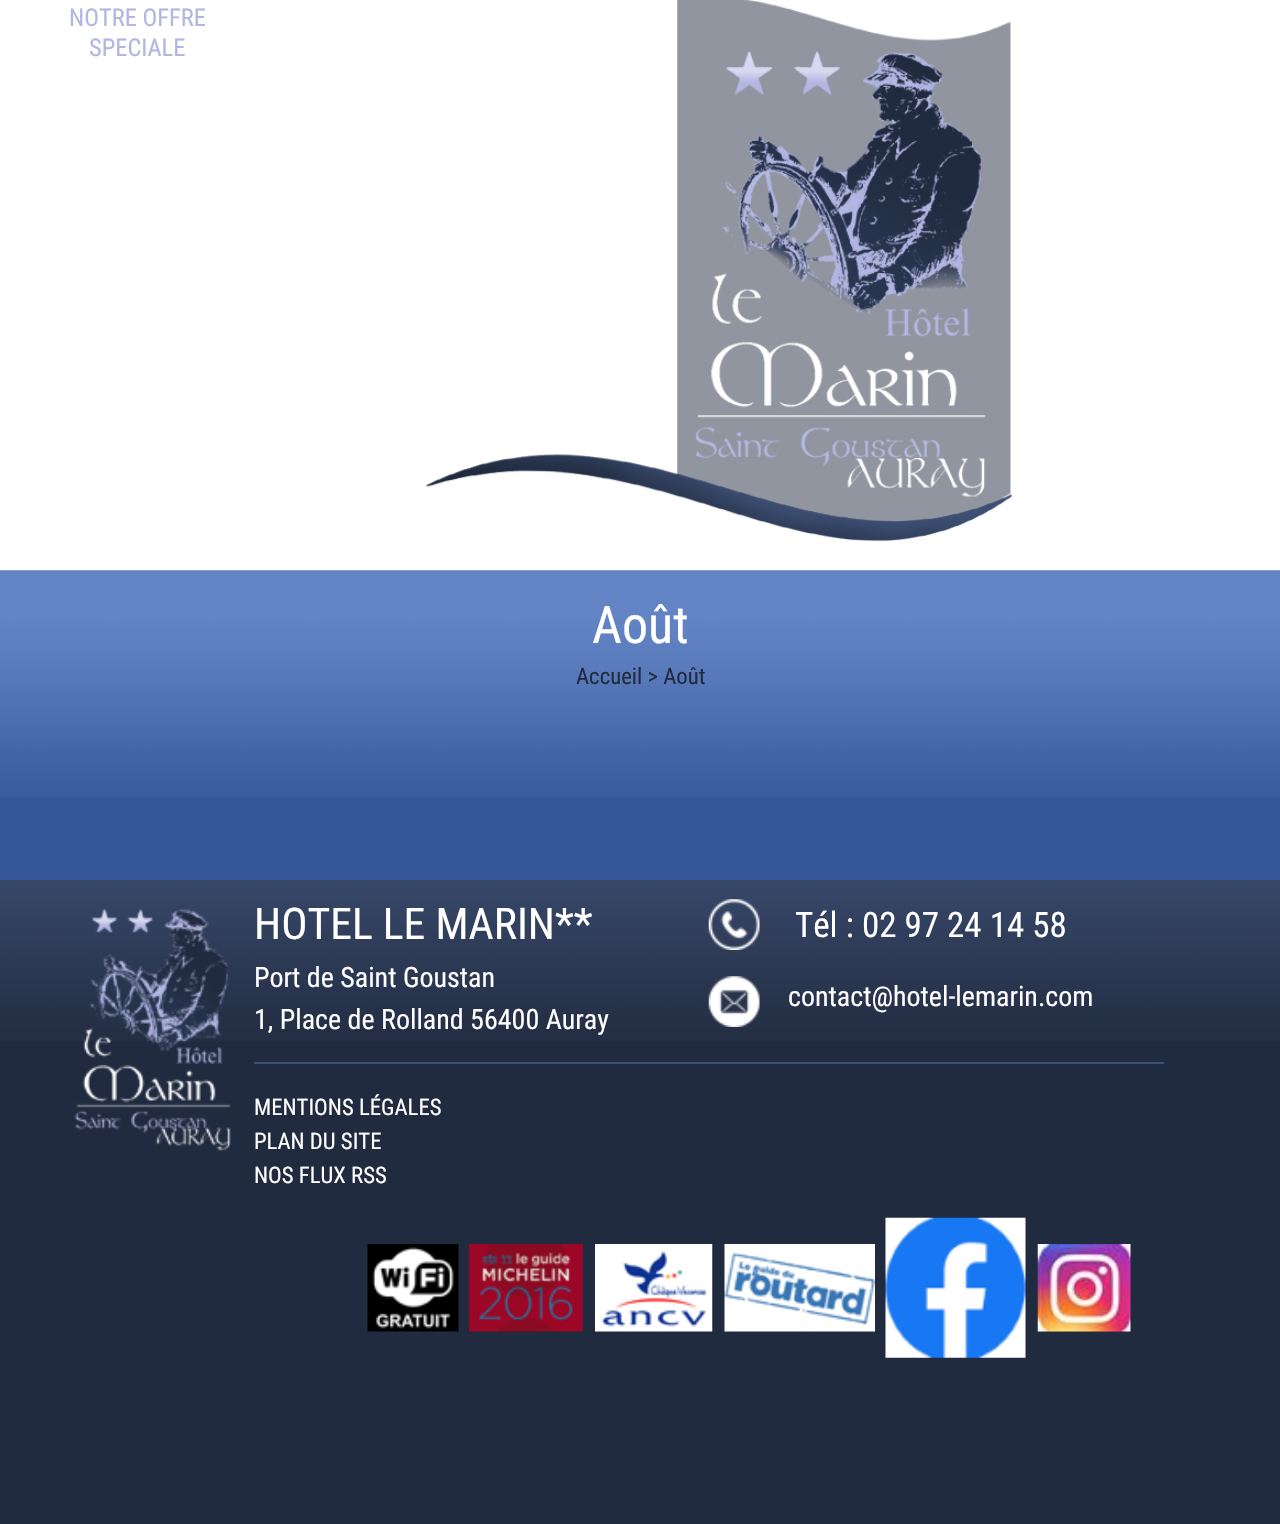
#include "include/core/SkBlurTypes.h"
#include "include/core/SkCanvas.h"
#include "include/core/SkData.h"
#include "include/core/SkFont.h"
#include "include/core/SkFontMgr.h"
#include "include/core/SkImage.h"
#include "include/core/SkMaskFilter.h"
#include "include/core/SkPaint.h"
#include "include/core/SkPathBuilder.h"
#include "include/core/SkTextBlob.h"
#include "include/effects/SkDashPathEffect.h"
#include "include/effects/SkGradientShader.h"
#include "include/utils/SkParsePath.h"

extern sk_sp<SkFontMgr> fontMgr;

void draw(SkCanvas* canvas) {
  SkPaint p;
  p.setAntiAlias(true);
  canvas->clear(SK_ColorWHITE);
  canvas->drawImageRect(SkImages::DeferredFromEncodedData(SkData::MakeFromFileName("images/1.png")), SkRect::MakeLTRB(677, 0, 1011, 523), SkSamplingOptions());
  canvas->drawImageRect(SkImages::DeferredFromEncodedData(SkData::MakeFromFileName("images/2.png")), SkRect::MakeLTRB(426, 454, 1012, 542), SkSamplingOptions());
  p.setColor(SkColorSetRGB(53, 87, 153));
  canvas->drawRect(SkRect::MakeLTRB(0, 798, 1280, 880), p);
  canvas->drawImageRect(SkImages::DeferredFromEncodedData(SkData::MakeFromFileName("images/3.png")), SkRect::MakeLTRB(0, 570, 1280, 798), SkSamplingOptions());
  p.setColor(SkColorSetRGB(33, 43, 63));
  canvas->drawRect(SkRect::MakeLTRB(0, 1041, 1280, 1524), p);
  canvas->drawImageRect(SkImages::DeferredFromEncodedData(SkData::MakeFromFileName("images/4.png")), SkRect::MakeLTRB(0, 880, 1280, 1041), SkSamplingOptions());
  canvas->drawImageRect(SkImages::DeferredFromEncodedData(SkData::MakeFromFileName("images/5.png")), SkRect::MakeLTRB(74, 909, 231, 1151), SkSamplingOptions());
  p.setColor(SkColorSetRGB(61, 79, 116));
  canvas->drawRect(SkRect::MakeLTRB(254, 1062, 1164, 1064), p);
  canvas->drawImageRect(SkImages::DeferredFromEncodedData(SkData::MakeFromFileName("images/6.png")), SkRect::MakeLTRB(708, 899, 760, 950), SkSamplingOptions());
  canvas->drawImageRect(SkImages::DeferredFromEncodedData(SkData::MakeFromFileName("images/7.png")), SkRect::MakeLTRB(708, 976, 760, 1027), SkSamplingOptions());
  canvas->drawImageRect(SkImages::DeferredFromEncodedData(SkData::MakeFromFileName("images/8.png")), SkRect::MakeLTRB(367, 1244, 459, 1332), SkSamplingOptions());
  canvas->drawImageRect(SkImages::DeferredFromEncodedData(SkData::MakeFromFileName("images/9.png")), SkRect::MakeLTRB(469, 1244, 583, 1332), SkSamplingOptions());
  canvas->drawImageRect(SkImages::DeferredFromEncodedData(SkData::MakeFromFileName("images/10.png")), SkRect::MakeLTRB(595, 1244, 713, 1332), SkSamplingOptions());
  canvas->drawImageRect(SkImages::DeferredFromEncodedData(SkData::MakeFromFileName("images/11.png")), SkRect::MakeLTRB(724, 1244, 875, 1332), SkSamplingOptions());
  canvas->drawImageRect(SkImages::DeferredFromEncodedData(SkData::MakeFromFileName("images/12.png")), SkRect::MakeLTRB(885, 1217, 1026, 1358), SkSamplingOptions());
  canvas->drawImageRect(SkImages::DeferredFromEncodedData(SkData::MakeFromFileName("images/13.png")), SkRect::MakeLTRB(1037, 1244, 1131, 1332), SkSamplingOptions());
  SkFont font1(fontMgr->matchFamilyStyle("Roboto Condensed", SkFontStyle::Normal()), 24.5f);
  font1.setSubpixel(true);
  p.setColor(SkColorSetRGB(179, 182, 226));
  canvas->drawString("NOTRE OFFRE", 69, 26, font1, p);
  canvas->drawString("SPECIALE", 89, 56, font1, p);
  SkFont font2(fontMgr->matchFamilyStyle("Roboto Condensed", SkFontStyle::Normal()), 52);
  font2.setSubpixel(true);
  p.setColor(SK_ColorWHITE);
  canvas->drawString("Août", 592, 643, font2, p);
  SkFont font3(fontMgr->matchFamilyStyle("Roboto Condensed", SkFontStyle::Normal()), 22.75f);
  font3.setSubpixel(true);
  p.setColor(SkColorSetRGB(33, 43, 63));
  canvas->drawString("Accueil > Août", 576, 684, font3, p);
  SkFont font4(fontMgr->matchFamilyStyle("Roboto Condensed", SkFontStyle::Normal()), 43.75f);
  font4.setSubpixel(true);
  p.setColor(SK_ColorWHITE);
  canvas->drawString("HOTEL LE MARIN**", 254, 939, font4, p);
  SkFont font5(fontMgr->matchFamilyStyle("Roboto Condensed", SkFontStyle::Normal()), 28);
  font5.setSubpixel(true);
  canvas->drawString("Port de Saint Goustan", 254, 987, font5, p);
  canvas->drawString("1, Place de Rolland 56400 Auray", 254, 1029, font5, p);
  SkFont font6(fontMgr->matchFamilyStyle("Roboto Condensed", SkFontStyle::Normal()), 35);
  font6.setSubpixel(true);
  canvas->drawString("Tél : 02 97 24 14 58", 795, 937, font6, p);
  canvas->drawString("contact@hotel-lemarin.com", 788, 1006, font5, p);
  canvas->drawString("MENTIONS LÉGALES", 254, 1115, font3, p);
  canvas->drawString("PLAN DU SITE", 254, 1149, font3, p);
  canvas->drawString("NOS FLUX RSS", 254, 1183, font3, p);
}
